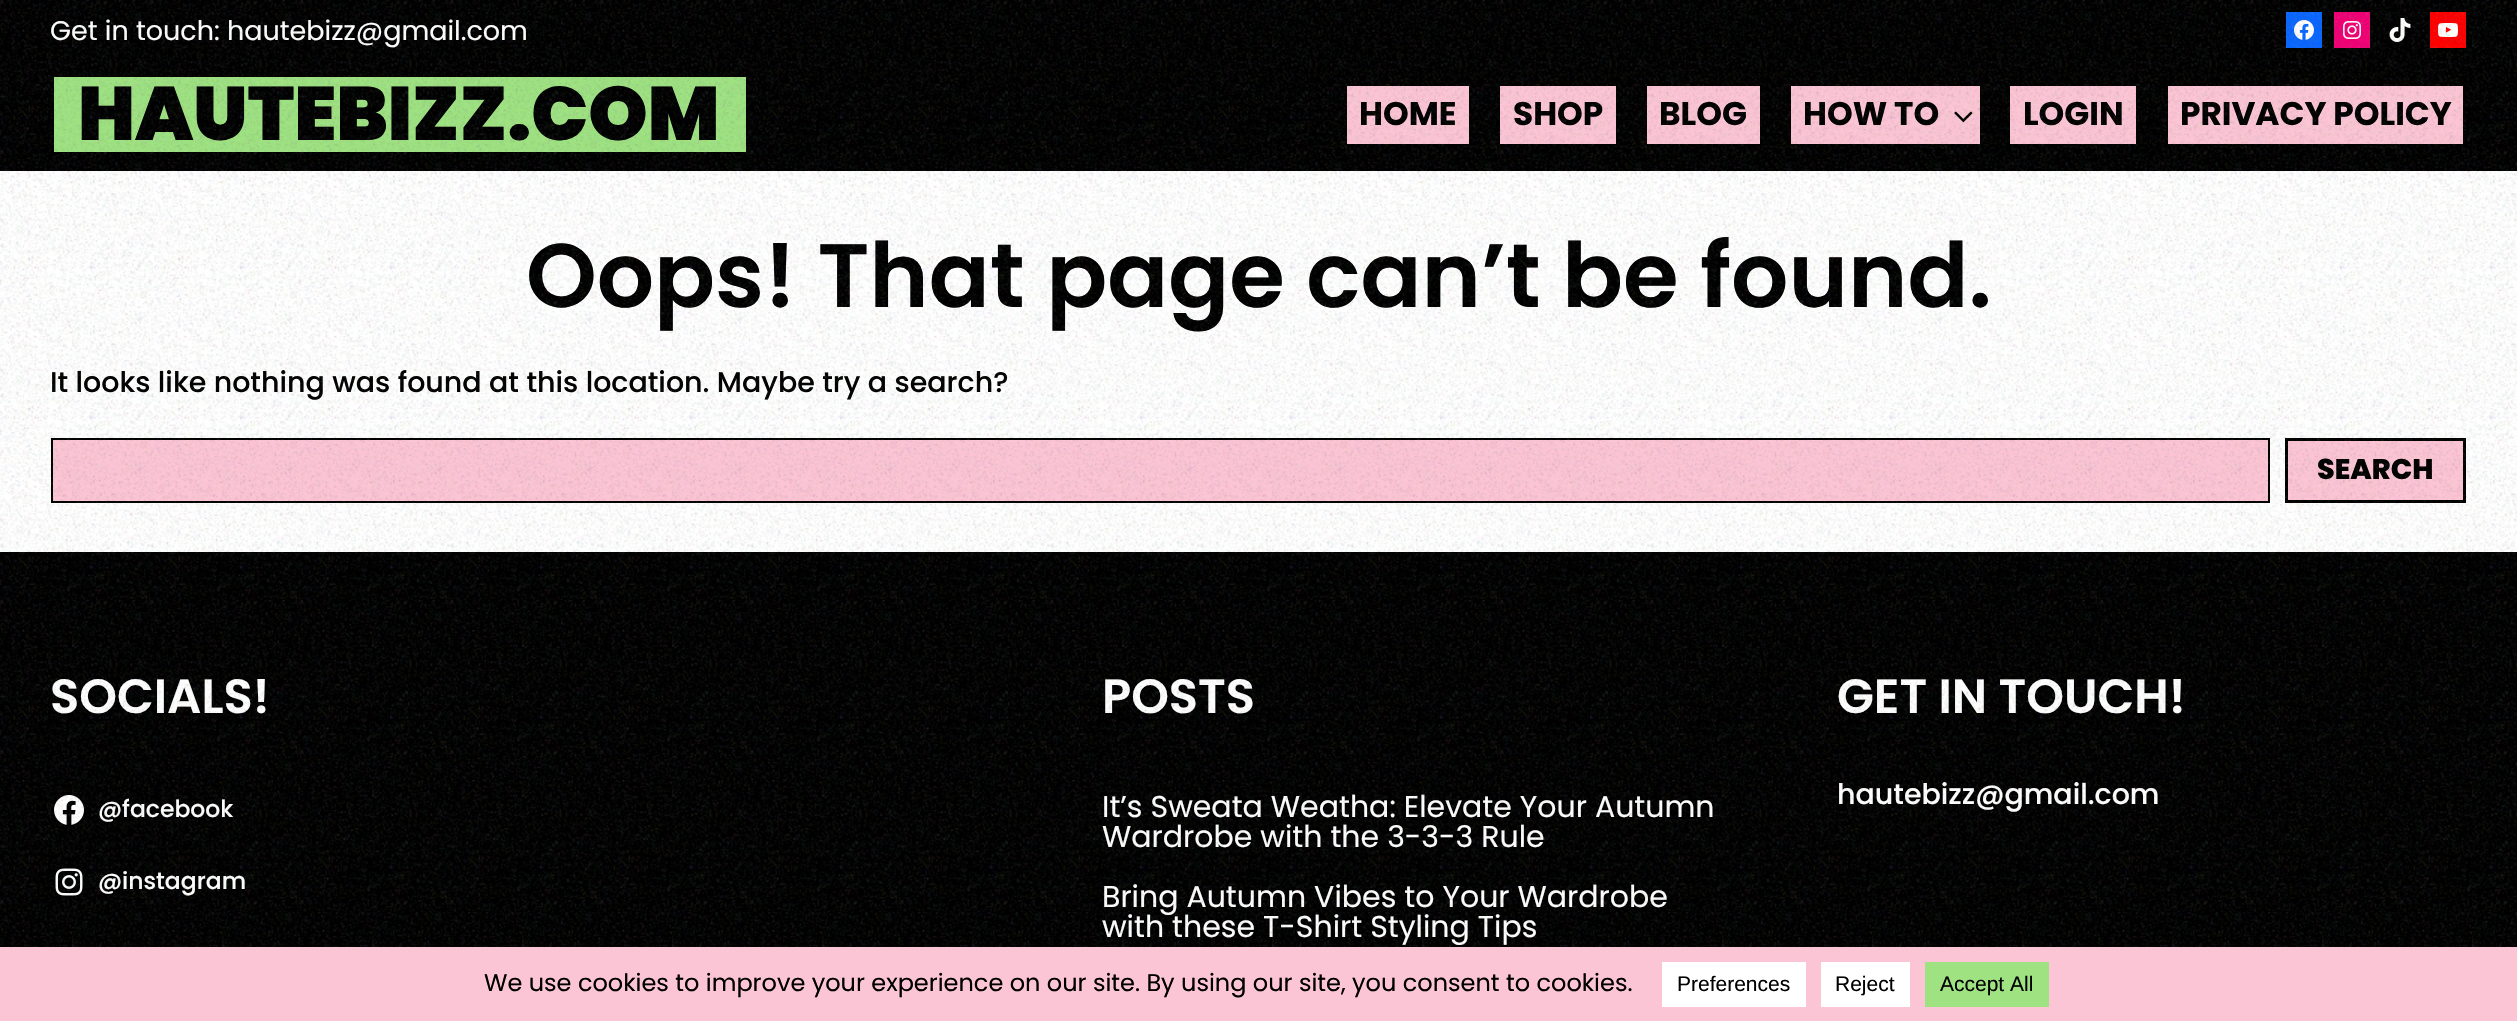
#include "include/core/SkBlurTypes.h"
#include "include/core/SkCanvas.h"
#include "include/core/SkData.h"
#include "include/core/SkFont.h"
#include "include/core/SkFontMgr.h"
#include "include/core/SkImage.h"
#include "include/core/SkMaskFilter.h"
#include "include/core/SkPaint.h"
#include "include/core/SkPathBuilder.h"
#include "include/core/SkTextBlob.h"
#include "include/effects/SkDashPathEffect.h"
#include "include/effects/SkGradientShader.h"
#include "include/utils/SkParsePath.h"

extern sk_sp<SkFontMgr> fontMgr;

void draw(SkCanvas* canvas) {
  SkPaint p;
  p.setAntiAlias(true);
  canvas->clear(SK_ColorWHITE);
  p.setColor(SK_ColorBLACK);
  canvas->drawRect(SkRect::MakeLTRB(0, 0, 2517, 171), p);
  p.setColor(SkColorSetRGB(8, 102, 255));
  canvas->drawRect(SkRect::MakeLTRB(2286, 12, 2322, 48), p);
  canvas->drawImageRect(SkImages::DeferredFromEncodedData(SkData::MakeFromFileName("images/2.png")), SkRect::MakeLTRB(2294, 20, 2314, 40), SkSamplingOptions());
  p.setColor(SkColorSetRGB(240, 0, 117));
  canvas->drawRect(SkRect::MakeLTRB(2334, 12, 2370, 48), p);
  canvas->drawImageRect(SkImages::DeferredFromEncodedData(SkData::MakeFromFileName("images/3.png")), SkRect::MakeLTRB(2343, 21, 2361, 39), SkSamplingOptions());
  canvas->drawImageRect(SkImages::DeferredFromEncodedData(SkData::MakeFromFileName("images/4.png")), SkRect::MakeLTRB(2389, 18, 2411, 42), SkSamplingOptions());
  p.setColor(SkColorSetRGB(255, 0, 0));
  canvas->drawRect(SkRect::MakeLTRB(2430, 12, 2466, 48), p);
  canvas->drawImageRect(SkImages::DeferredFromEncodedData(SkData::MakeFromFileName("images/5.png")), SkRect::MakeLTRB(2438, 23, 2458, 37), SkSamplingOptions());
  p.setColor(SkColorSetRGB(158, 226, 130));
  canvas->drawRect(SkRect::MakeLTRB(54, 77, 746, 152), p);
  p.setColor(SkColorSetRGB(252, 197, 213));
  canvas->drawRect(SkRect::MakeLTRB(1347, 86, 1469, 144), p);
  canvas->drawRect(SkRect::MakeLTRB(1500, 86, 1616, 144), p);
  canvas->drawRect(SkRect::MakeLTRB(1647, 86, 1760, 144), p);
  canvas->drawRect(SkRect::MakeLTRB(1791, 86, 1980, 144), p);
  canvas->drawImageRect(SkImages::DeferredFromEncodedData(SkData::MakeFromFileName("images/6.png")), SkRect::MakeLTRB(1954, 111, 1973, 123), SkSamplingOptions());
  canvas->drawRect(SkRect::MakeLTRB(2010, 86, 2136, 144), p);
  canvas->drawRect(SkRect::MakeLTRB(2168, 86, 2463, 144), p);
  canvas->drawRect(SkRect::MakeLTRB(52, 439, 2269, 502), p);
  p.setStyle(SkPaint::kStroke_Style);
  p.setStrokeWidth(2);
  p.setColor(SK_ColorBLACK);
  canvas->drawRect(SkRect::MakeLTRB(52, 439, 2269, 502), p);
  p.setStyle(SkPaint::kFill_Style);
  p.setColor(SkColorSetRGB(252, 197, 213));
  canvas->drawRect(SkRect::MakeLTRB(2286.5f, 439.5f, 2464.5f, 501.5f), p);
  p.setStyle(SkPaint::kStroke_Style);
  p.setStrokeWidth(3);
  p.setColor(SK_ColorBLACK);
  canvas->drawRect(SkRect::MakeLTRB(2286.5f, 439.5f, 2464.5f, 501.5f), p);
  p.setStyle(SkPaint::kFill_Style);
  canvas->drawRect(SkRect::MakeLTRB(0, 552, 2517, 947), p);
  canvas->drawImageRect(SkImages::DeferredFromEncodedData(SkData::MakeFromFileName("images/7.png")), SkRect::MakeLTRB(54, 795, 84, 825), SkSamplingOptions());
  canvas->drawImageRect(SkImages::DeferredFromEncodedData(SkData::MakeFromFileName("images/8.png")), SkRect::MakeLTRB(55, 868, 83, 896), SkSamplingOptions());
  p.setColor(SkColorSetRGB(252, 197, 213));
  canvas->drawRect(SkRect::MakeLTRB(0, 947, 2517, 1021), p);
  p.setColor(SK_ColorWHITE);
  canvas->drawRect(SkRect::MakeLTRB(1662, 962, 1806, 1007), p);
  canvas->drawRect(SkRect::MakeLTRB(1821, 962, 1910, 1007), p);
  p.setColor(SkColorSetRGB(158, 226, 130));
  canvas->drawRect(SkRect::MakeLTRB(1925, 962, 2049, 1007), p);
  SkFont font1(fontMgr->matchFamilyStyle("Poppins", SkFontStyle::Normal()), 27);
  font1.setSubpixel(true);
  p.setColor(SK_ColorWHITE);
  canvas->drawString("Get in touch: hautebizz@gmail.com", 50, 40, font1, p);
  SkFont font2(fontMgr->matchFamilyStyle("Poppins", SkFontStyle(900, SkFontStyle::kNormal_Width, SkFontStyle::kUpright_Slant)), 75.5f);
  font2.setSubpixel(true);
  p.setColor(SK_ColorBLACK);
  canvas->drawString("HAUTEBIZZ.COM", 78, 140, font2, p);
  SkFont font3(fontMgr->matchFamilyStyle("Poppins", SkFontStyle::Bold()), 32.75f);
  font3.setSubpixel(true);
  canvas->drawString("HOME", 1359, 125, font3, p);
  canvas->drawString("SHOP", 1513, 125, font3, p);
  canvas->drawString("BLOG", 1659, 125, font3, p);
  canvas->drawString("HOW TO", 1803, 125, font3, p);
  canvas->drawString("LOGIN", 2023, 125, font3, p);
  canvas->drawString("PRIVACY POLICY", 2180, 125, font3, p);
  SkFont font4(fontMgr->matchFamilyStyle("Poppins", SkFontStyle(600, SkFontStyle::kNormal_Width, SkFontStyle::kUpright_Slant)), 90);
  font4.setSubpixel(true);
  canvas->drawString("Oops! That page can’t be found.", 526, 307, font4, p);
  SkFont font5(fontMgr->matchFamilyStyle("Poppins", SkFontStyle(500, SkFontStyle::kNormal_Width, SkFontStyle::kUpright_Slant)), 28.5f);
  font5.setSubpixel(true);
  canvas->drawString("It looks like nothing was found at this location. Maybe try a search?", 50, 392, font5, p);
  SkFont font6(fontMgr->matchFamilyStyle("Poppins", SkFontStyle(800, SkFontStyle::kNormal_Width, SkFontStyle::kUpright_Slant)), 28.5f);
  font6.setSubpixel(true);
  canvas->drawString("SEARCH", 2317, 479, font6, p);
  SkFont font7(fontMgr->matchFamilyStyle("Poppins", SkFontStyle(600, SkFontStyle::kNormal_Width, SkFontStyle::kUpright_Slant)), 48);
  font7.setSubpixel(true);
  p.setColor(SK_ColorWHITE);
  canvas->drawString("SOCIALS!", 50, 713, font7, p);
  SkFont font8(fontMgr->matchFamilyStyle("Poppins", SkFontStyle(500, SkFontStyle::kNormal_Width, SkFontStyle::kUpright_Slant)), 23.5f);
  font8.setSubpixel(true);
  canvas->drawString("@facebook", 98, 817, font8, p);
  canvas->drawString("@instagram", 98, 889, font8, p);
  canvas->drawString("POSTS", 1102, 713, font7, p);
  SkFont font9(fontMgr->matchFamilyStyle("Poppins", SkFontStyle::Normal()), 30);
  font9.setSubpixel(true);
  canvas->drawString("It’s Sweata Weatha: Elevate Your Autumn", 1102, 817, font9, p);
  canvas->drawString("Wardrobe with the 3-3-3 Rule", 1102, 847, font9, p);
  canvas->drawString("Bring Autumn Vibes to Your Wardrobe", 1102, 907, font9, p);
  canvas->drawString("with these T-Shirt Styling Tips", 1102, 937, font9, p);
  canvas->drawString("GET IN TOUCH!", 1837, 713, font7, p);
  canvas->drawString("hautebizz@gmail.com", 1837, 804, font5, p);
  canvas->drawImageRect(SkImages::DeferredFromEncodedData(SkData::MakeFromFileName("images/1.png")), SkRect::MakeLTRB(0, 0, 2517, 947), SkSamplingOptions());
  SkFont font10(fontMgr->matchFamilyStyle("Poppins", SkFontStyle::Normal()), 24);
  font10.setSubpixel(true);
  p.setColor(SK_ColorBLACK);
  canvas->drawString("We use cookies to improve your experience on our site. By using our site, you consent to cookies.", 484, 991, font10, p);
  SkFont font11(fontMgr->matchFamilyStyle("Liberation Sans", SkFontStyle::Normal()), 21);
  font11.setSubpixel(true);
  canvas->drawString("Preferences", 1677, 991, font11, p);
  canvas->drawString("Reject", 1835, 991, font11, p);
  canvas->drawString("Accept All", 1940, 991, font11, p);
}
